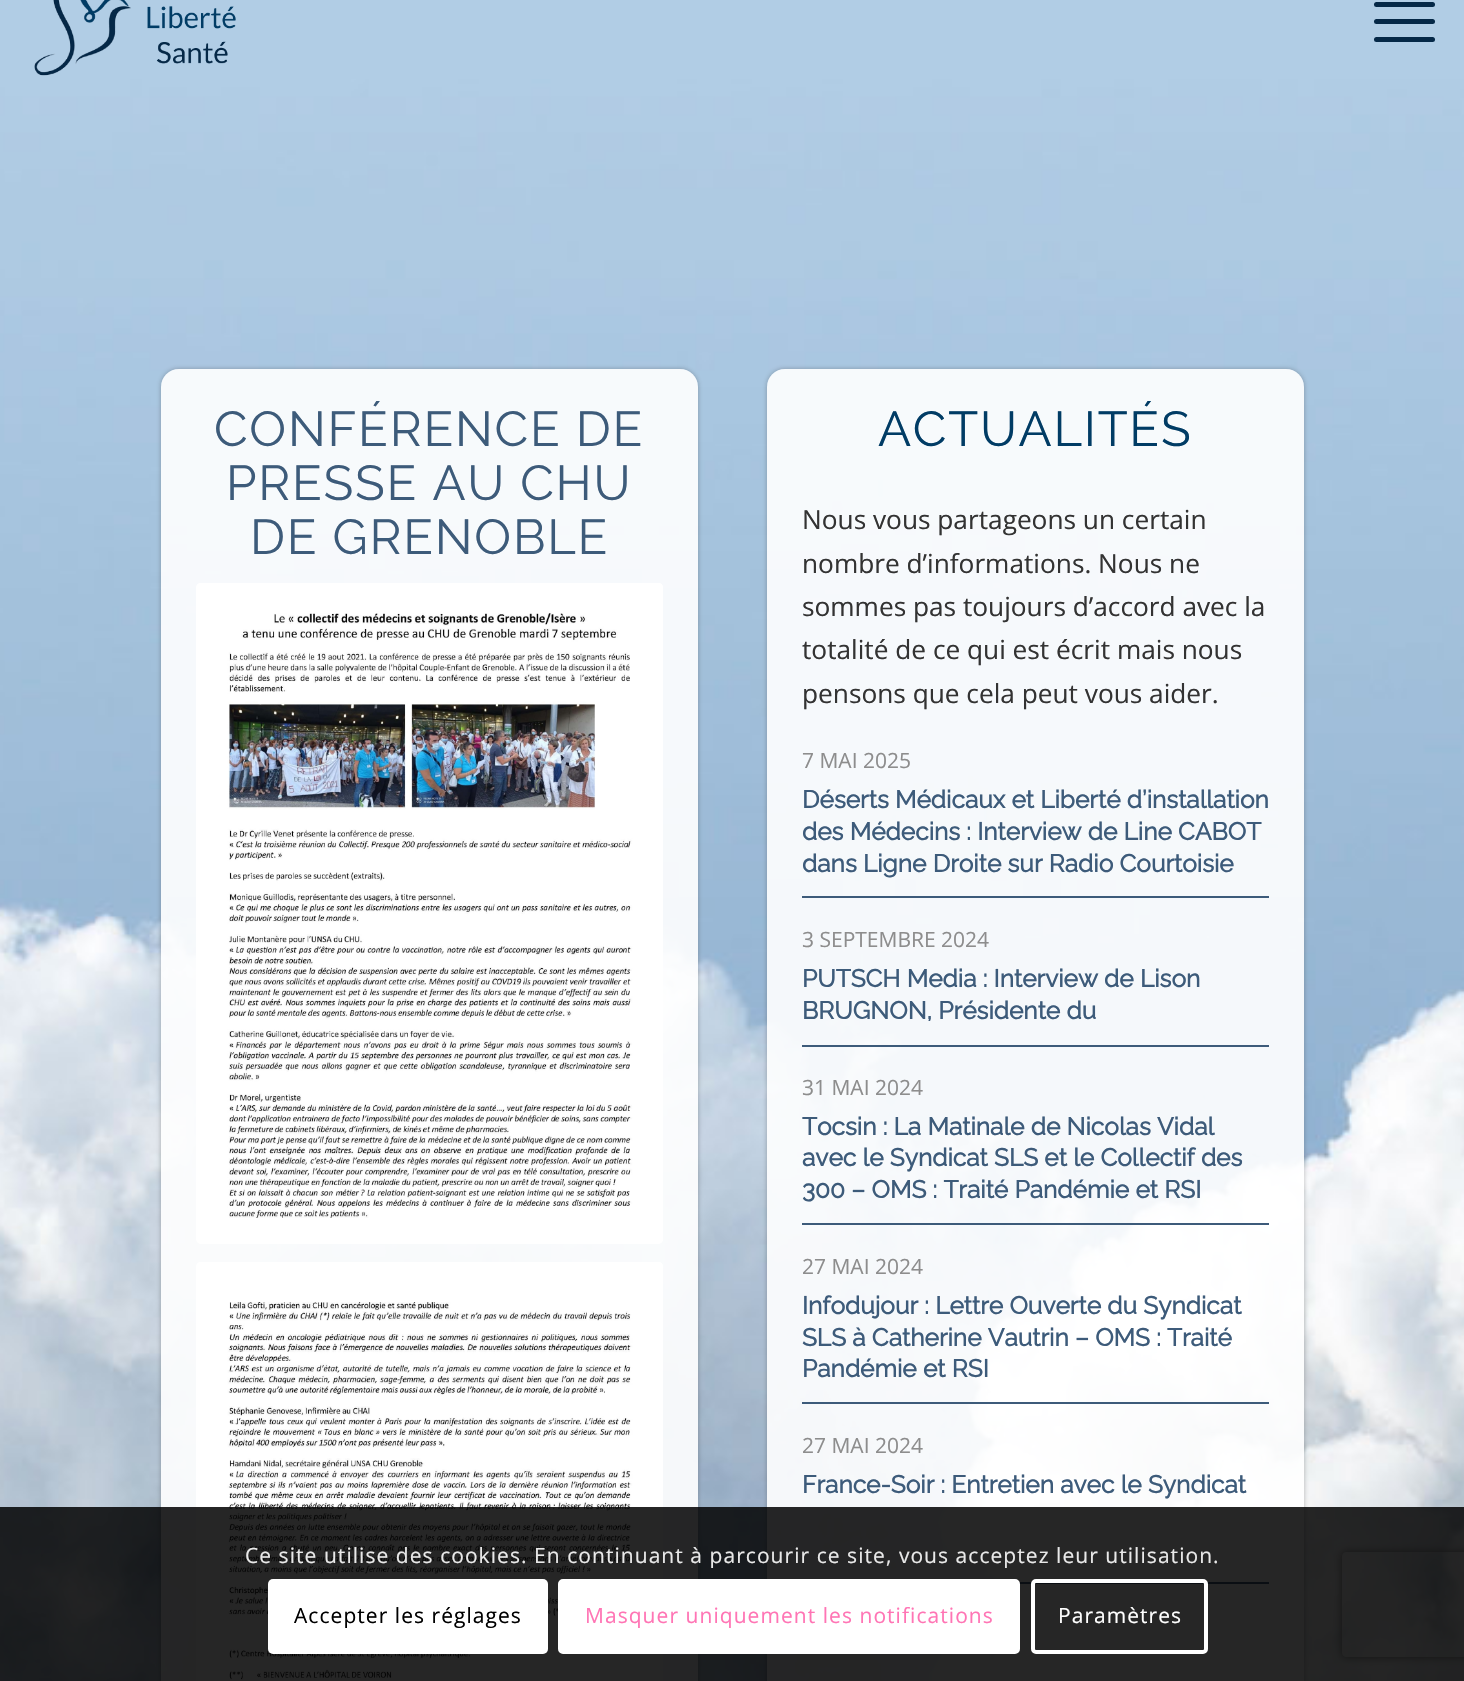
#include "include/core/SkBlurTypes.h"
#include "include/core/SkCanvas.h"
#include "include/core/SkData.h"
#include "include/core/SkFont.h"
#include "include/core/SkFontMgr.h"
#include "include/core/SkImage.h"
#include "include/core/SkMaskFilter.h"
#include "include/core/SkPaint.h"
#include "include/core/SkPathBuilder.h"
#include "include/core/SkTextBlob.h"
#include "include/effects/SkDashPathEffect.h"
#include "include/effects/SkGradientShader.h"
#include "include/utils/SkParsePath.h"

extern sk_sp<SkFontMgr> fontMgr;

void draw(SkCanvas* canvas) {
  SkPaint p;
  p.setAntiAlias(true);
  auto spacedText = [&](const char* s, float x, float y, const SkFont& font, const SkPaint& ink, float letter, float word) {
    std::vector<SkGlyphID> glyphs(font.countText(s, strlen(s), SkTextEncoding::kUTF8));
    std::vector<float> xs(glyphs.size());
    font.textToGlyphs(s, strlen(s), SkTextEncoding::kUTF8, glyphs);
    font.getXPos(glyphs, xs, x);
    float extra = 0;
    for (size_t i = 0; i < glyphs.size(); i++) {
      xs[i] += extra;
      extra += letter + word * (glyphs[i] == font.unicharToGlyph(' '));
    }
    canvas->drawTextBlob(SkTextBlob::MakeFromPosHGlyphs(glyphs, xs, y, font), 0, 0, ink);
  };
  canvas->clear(SK_ColorWHITE);
  p.setColor(SkColorSetRGB(177, 205, 229));
  canvas->drawRect(SkRect::MakeLTRB(0, 0, 1464, 79), p);
  canvas->drawImageRect(SkImages::DeferredFromEncodedData(SkData::MakeFromFileName("images/1.png")), SkRect::MakeLTRB(34, 0, 236, 76), SkSamplingOptions());
  p.setColor(SkColorSetRGB(5, 40, 71));
  canvas->drawRoundRect(SkRect::MakeLTRB(1374, 19, 1435, 24), 2.5f, 2.5f, p);
  canvas->drawRoundRect(SkRect::MakeLTRB(1374, 2, 1435, 7), 2.5f, 2.5f, p);
  canvas->drawRoundRect(SkRect::MakeLTRB(1374, 37, 1435, 42), 2.5f, 2.5f, p);
  canvas->drawImageRect(SkImages::DeferredFromEncodedData(SkData::MakeFromFileName("images/2.png")), SkRect::MakeLTRB(0, 79, 1464, 1681), SkSamplingOptions());
  canvas->save();
  canvas->clipPath(SkPathBuilder(SkPathFillType::kEvenOdd).moveTo(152, 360).lineTo(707, 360).lineTo(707, 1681).lineTo(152, 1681).close().moveTo(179, 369).lineTo(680, 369).cubicTo(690, 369, 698, 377, 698, 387).lineTo(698, 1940).cubicTo(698, 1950, 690, 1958, 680, 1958).lineTo(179, 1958).cubicTo(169, 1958, 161, 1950, 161, 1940).lineTo(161, 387).cubicTo(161, 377, 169, 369, 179, 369).close().detach(), true);
  p.setColor(SkColorSetARGB(87, 51, 51, 51));
  p.setMaskFilter(SkMaskFilter::MakeBlur(kNormal_SkBlurStyle, 2.5f));
  canvas->drawRoundRect(SkRect::MakeLTRB(161, 369, 698, 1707), 18, 18, p);
  p.setMaskFilter(nullptr);
  canvas->restore();
  p.setColor(SkColorSetARGB(230, 255, 255, 255));
  canvas->drawRoundRect(SkRect::MakeLTRB(161, 369, 698, 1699), 18, 18, p);
  canvas->drawImageRect(SkImages::DeferredFromEncodedData(SkData::MakeFromFileName("images/3.png")), SkRect::MakeLTRB(196, 583, 663, 1244), SkSamplingOptions());
  canvas->drawImageRect(SkImages::DeferredFromEncodedData(SkData::MakeFromFileName("images/4.png")), SkRect::MakeLTRB(196, 1262, 663, 1681), SkSamplingOptions());
  canvas->save();
  canvas->clipPath(SkPathBuilder(SkPathFillType::kEvenOdd).moveTo(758, 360).lineTo(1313, 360).lineTo(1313, 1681).lineTo(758, 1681).close().moveTo(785, 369).lineTo(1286, 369).cubicTo(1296, 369, 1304, 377, 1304, 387).lineTo(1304, 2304).cubicTo(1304, 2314, 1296, 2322, 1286, 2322).lineTo(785, 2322).cubicTo(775, 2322, 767, 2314, 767, 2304).lineTo(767, 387).cubicTo(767, 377, 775, 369, 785, 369).close().detach(), true);
  p.setColor(SkColorSetARGB(87, 51, 51, 51));
  p.setMaskFilter(SkMaskFilter::MakeBlur(kNormal_SkBlurStyle, 2.5f));
  canvas->drawRoundRect(SkRect::MakeLTRB(767, 369, 1304, 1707), 18, 18, p);
  p.setMaskFilter(nullptr);
  canvas->restore();
  p.setColor(SkColorSetARGB(230, 255, 255, 255));
  canvas->drawRoundRect(SkRect::MakeLTRB(767, 369, 1304, 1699), 18, 18, p);
  p.setColor(SkColorSetRGB(61, 91, 122));
  canvas->drawRect(SkRect::MakeLTRB(802, 896, 1269, 898), p);
  canvas->drawRect(SkRect::MakeLTRB(802, 1045, 1269, 1047), p);
  canvas->drawRect(SkRect::MakeLTRB(802, 1223, 1269, 1225), p);
  canvas->drawRect(SkRect::MakeLTRB(802, 1402, 1269, 1404), p);
  canvas->drawRect(SkRect::MakeLTRB(1019, 1582, 1269, 1584), p);
  canvas->save();
  canvas->clipPath(SkPathBuilder(SkPathFillType::kEvenOdd).moveTo(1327, 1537).lineTo(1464, 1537).lineTo(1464, 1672).lineTo(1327, 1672).close().moveTo(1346, 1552).lineTo(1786, 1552).cubicTo(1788, 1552, 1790, 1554, 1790, 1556).lineTo(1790, 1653).cubicTo(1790, 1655, 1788, 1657, 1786, 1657).lineTo(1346, 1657).cubicTo(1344, 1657, 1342, 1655, 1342, 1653).lineTo(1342, 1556).cubicTo(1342, 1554, 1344, 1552, 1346, 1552).close().detach(), true);
  p.setColor(SkColorSetRGB(128, 128, 128));
  p.setMaskFilter(SkMaskFilter::MakeBlur(kNormal_SkBlurStyle, 4.5f));
  canvas->drawRoundRect(SkRect::MakeLTRB(1342, 1552, 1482, 1657), 4, 4, p);
  p.setMaskFilter(nullptr);
  canvas->restore();
  p.setColor(SkColorSetARGB(217, 0, 0, 0));
  canvas->drawRect(SkRect::MakeLTRB(0, 1507, 1464, 1681), p);
  p.setColor(SK_ColorWHITE);
  canvas->drawRoundRect(SkRect::MakeLTRB(268, 1579, 548, 1654), 5, 5, p);
  canvas->drawRoundRect(SkRect::MakeLTRB(560, 1581, 1018, 1652), 3, 3, p);
  p.setStyle(SkPaint::kStroke_Style);
  p.setStrokeWidth(4);
  canvas->drawRoundRect(SkRect::MakeLTRB(560, 1581, 1018, 1652), 3, 3, p);
  canvas->drawRoundRect(SkRect::MakeLTRB(1033, 1581, 1206, 1652), 3, 3, p);
  SkFont font1(fontMgr->matchFamilyStyle("Raleway", SkFontStyle(100, SkFontStyle::kNormal_Width, SkFontStyle::kUpright_Slant)), 49);
  font1.setSubpixel(true);
  p.setStyle(SkPaint::kFill_Style);
  p.setColor(SkColorSetRGB(61, 91, 122));
  spacedText("CONFÉRENCE DE", 214, 446, font1, p, 1.75f, 0);
  spacedText("PRESSE AU CHU", 226, 500, font1, p, 1.75f, 0);
  spacedText("DE GRENOBLE", 250, 554, font1, p, 1.75f, 0);
  p.setColor(SkColorSetRGB(1, 60, 101));
  spacedText("ACTUALITÉS", 878, 446, font1, p, 1.75f, 0);
  SkFont font2(fontMgr->matchFamilyStyle("Open Sans", SkFontStyle::Normal()), 26.25f);
  font2.setSubpixel(true);
  p.setColor(SkColorSetRGB(51, 51, 51));
  canvas->drawString("Nous vous partageons un certain", 802, 529, font2, p);
  canvas->drawString("nombre d’informations. Nous ne", 802, 573, font2, p);
  canvas->drawString("sommes pas toujours d’accord avec la", 802, 616, font2, p);
  canvas->drawString("totalité de ce qui est écrit mais nous", 802, 659, font2, p);
  canvas->drawString("pensons que cela peut vous aider.", 802, 703, font2, p);
  SkFont font3(fontMgr->matchFamilyStyle("Open Sans", SkFontStyle::Normal()), 21);
  font3.setSubpixel(true);
  p.setColor(SkColorSetRGB(141, 141, 141));
  canvas->drawString("7 MAI 2025", 802, 768, font3, p);
  SkFont font4(fontMgr->matchFamilyStyle("Raleway", SkFontStyle::Bold()), 24.5f);
  font4.setSubpixel(true);
  p.setColor(SkColorSetRGB(61, 91, 122));
  canvas->drawString("Déserts Médicaux et Liberté d’installation", 802, 808, font4, p);
  canvas->drawString("des Médecins : Interview de Line CABOT", 802, 840, font4, p);
  canvas->drawString("dans Ligne Droite sur Radio Courtoisie", 802, 872, font4, p);
  p.setColor(SkColorSetRGB(141, 141, 141));
  canvas->drawString("3 SEPTEMBRE 2024", 802, 947, font3, p);
  p.setColor(SkColorSetRGB(61, 91, 122));
  canvas->drawString("PUTSCH Media : Interview de Lison", 802, 987, font4, p);
  canvas->drawString("BRUGNON, Présidente du", 802, 1019, font4, p);
  p.setColor(SkColorSetRGB(141, 141, 141));
  canvas->drawString("31 MAI 2024", 802, 1095, font3, p);
  p.setColor(SkColorSetRGB(61, 91, 122));
  canvas->drawString("Tocsin : La Matinale de Nicolas Vidal", 802, 1135, font4, p);
  canvas->drawString("avec le Syndicat SLS et le Collectif des", 802, 1166, font4, p);
  canvas->drawString("300 – OMS : Traité Pandémie et RSI", 802, 1198, font4, p);
  p.setColor(SkColorSetRGB(141, 141, 141));
  canvas->drawString("27 MAI 2024", 802, 1274, font3, p);
  p.setColor(SkColorSetRGB(61, 91, 122));
  canvas->drawString("Infodujour : Lettre Ouverte du Syndicat", 802, 1314, font4, p);
  canvas->drawString("SLS à Catherine Vautrin – OMS : Traité", 802, 1346, font4, p);
  canvas->drawString("Pandémie et RSI", 802, 1377, font4, p);
  p.setColor(SkColorSetRGB(141, 141, 141));
  canvas->drawString("27 MAI 2024", 802, 1453, font3, p);
  p.setColor(SkColorSetRGB(61, 91, 122));
  canvas->drawString("France-Soir : Entretien avec le Syndicat", 802, 1493, font4, p);
  p.setColor(SkColorSetRGB(233, 233, 233));
  spacedText("Ce site utilise des cookies. En continuant à parcourir ce site, vous acceptez leur utilisation.", 245, 1563, font3, p, 1.05f, 0);
  p.setColor(SK_ColorBLACK);
  spacedText("Accepter les réglages", 294, 1623, font3, p, 1.05f, 0);
  p.setColor(SkColorSetRGB(255, 117, 181));
  spacedText("Masquer uniquement les notifications", 585, 1623, font3, p, 1.05f, 0);
  p.setColor(SK_ColorWHITE);
  spacedText("Paramètres", 1058, 1623, font3, p, 1.05f, 0);
}
